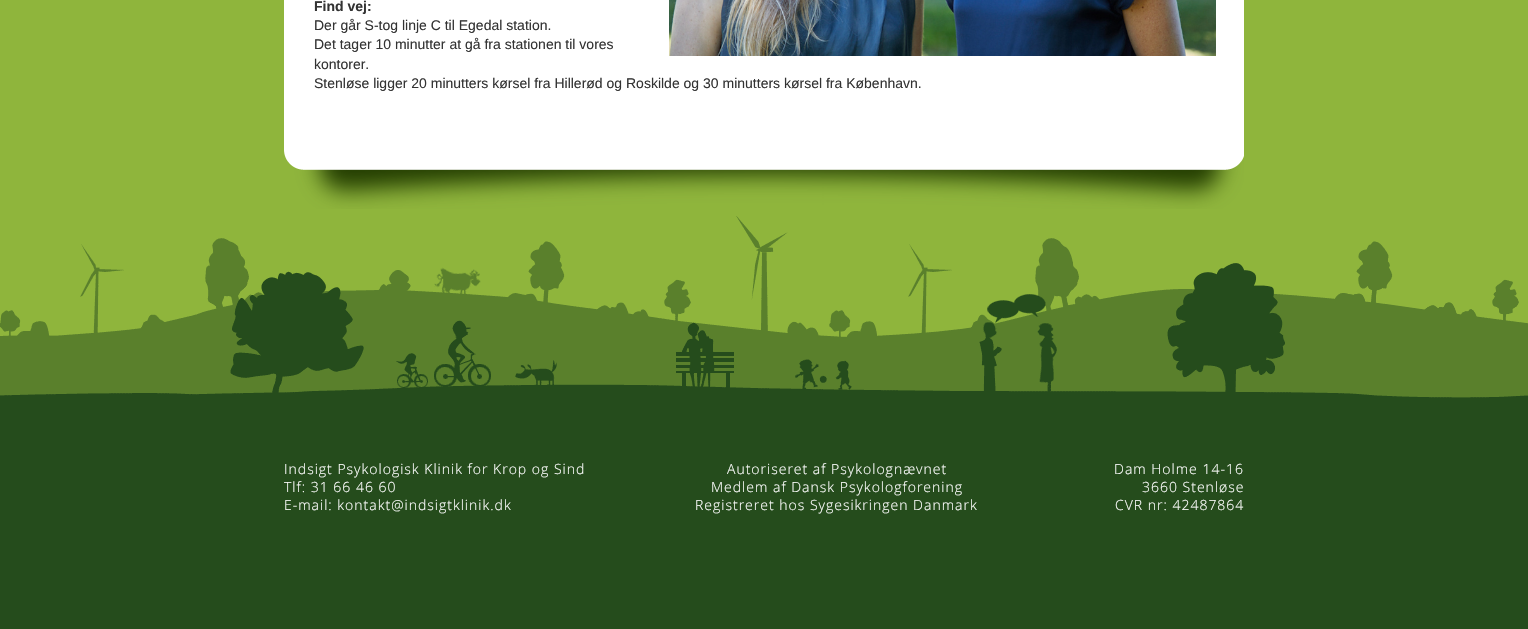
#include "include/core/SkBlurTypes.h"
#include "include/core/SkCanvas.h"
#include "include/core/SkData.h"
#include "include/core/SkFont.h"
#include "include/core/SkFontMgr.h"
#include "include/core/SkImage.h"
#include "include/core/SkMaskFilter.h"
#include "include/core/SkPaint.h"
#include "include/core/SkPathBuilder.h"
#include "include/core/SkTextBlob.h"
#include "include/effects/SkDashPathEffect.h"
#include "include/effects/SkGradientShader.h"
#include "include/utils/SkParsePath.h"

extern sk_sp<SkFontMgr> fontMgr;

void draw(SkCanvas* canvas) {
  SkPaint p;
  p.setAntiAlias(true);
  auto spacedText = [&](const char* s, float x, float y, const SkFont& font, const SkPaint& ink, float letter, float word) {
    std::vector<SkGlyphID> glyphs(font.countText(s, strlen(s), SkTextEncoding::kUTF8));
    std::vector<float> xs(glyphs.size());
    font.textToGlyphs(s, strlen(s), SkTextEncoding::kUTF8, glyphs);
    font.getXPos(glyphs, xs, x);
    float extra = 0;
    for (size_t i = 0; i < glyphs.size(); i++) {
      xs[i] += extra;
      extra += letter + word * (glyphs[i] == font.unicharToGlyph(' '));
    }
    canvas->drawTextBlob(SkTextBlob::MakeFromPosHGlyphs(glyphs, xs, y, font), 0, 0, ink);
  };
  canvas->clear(SkColorSetRGB(143, 181, 60));
  p.setColor(SK_ColorWHITE);
  canvas->drawRect(SkRect::MakeLTRB(284, 0, 1244, 130), p);
  canvas->drawImageRect(SkImages::DeferredFromEncodedData(SkData::MakeFromFileName("images/1.png")), SkRect::MakeLTRB(669, 0, 1216, 56), SkSamplingOptions());
  canvas->drawImageRect(SkImages::DeferredFromEncodedData(SkData::MakeFromFileName("images/2.png")), SkRect::MakeLTRB(284, 130, 1244, 209), SkSamplingOptions());
  canvas->drawImageRect(SkImages::DeferredFromEncodedData(SkData::MakeFromFileName("images/3.png")), SkRect::MakeLTRB(0, 216, 1528, 629), SkSamplingOptions());
  SkFont font1(fontMgr->matchFamilyStyle("Liberation Sans", SkFontStyle::Bold()), 14);
  font1.setSubpixel(true);
  p.setColor(SkColorSetRGB(51, 51, 51));
  canvas->drawString("Find vej:", 314, 11, font1, p);
  SkFont font2(fontMgr->matchFamilyStyle("Liberation Sans", SkFontStyle::Normal()), 14);
  font2.setSubpixel(true);
  canvas->drawString("Der går S-tog linje C til Egedal station.", 314, 30, font2, p);
  canvas->drawString("Det tager 10 minutter at gå fra stationen til vores", 314, 49, font2, p);
  canvas->drawString("kontorer.", 314, 69, font2, p);
  canvas->drawString("Stenløse ligger 20 minutters kørsel fra Hillerød og Roskilde og 30 minutters kørsel fra København.", 314, 88, font2, p);
  SkFont font3(fontMgr->matchFamilyStyle("Open Sans", SkFontStyle(300, SkFontStyle::kNormal_Width, SkFontStyle::kUpright_Slant)), 14);
  font3.setSubpixel(true);
  p.setColor(SK_ColorWHITE);
  spacedText("Indsigt Psykologisk Klinik for Krop og Sind", 284, 474, font3, p, 1, 0);
  spacedText("Tlf: 31 66 46 60", 284, 492, font3, p, 1, 0);
  spacedText("E-mail: kontakt@indsigtklinik.dk", 284, 510, font3, p, 1, 0);
  spacedText("Autoriseret af Psykolognævnet", 727, 474, font3, p, 1, 0);
  spacedText("Medlem af Dansk Psykologforening", 711, 492, font3, p, 1, 0);
  spacedText("Registreret hos Sygesikringen Danmark", 695, 510, font3, p, 1, 0);
  spacedText("Dam Holme 14-16", 1114, 474, font3, p, 1, 0);
  spacedText("3660 Stenløse", 1142, 492, font3, p, 1, 0);
  spacedText("CVR nr: 42487864", 1115, 510, font3, p, 1, 0);
}
